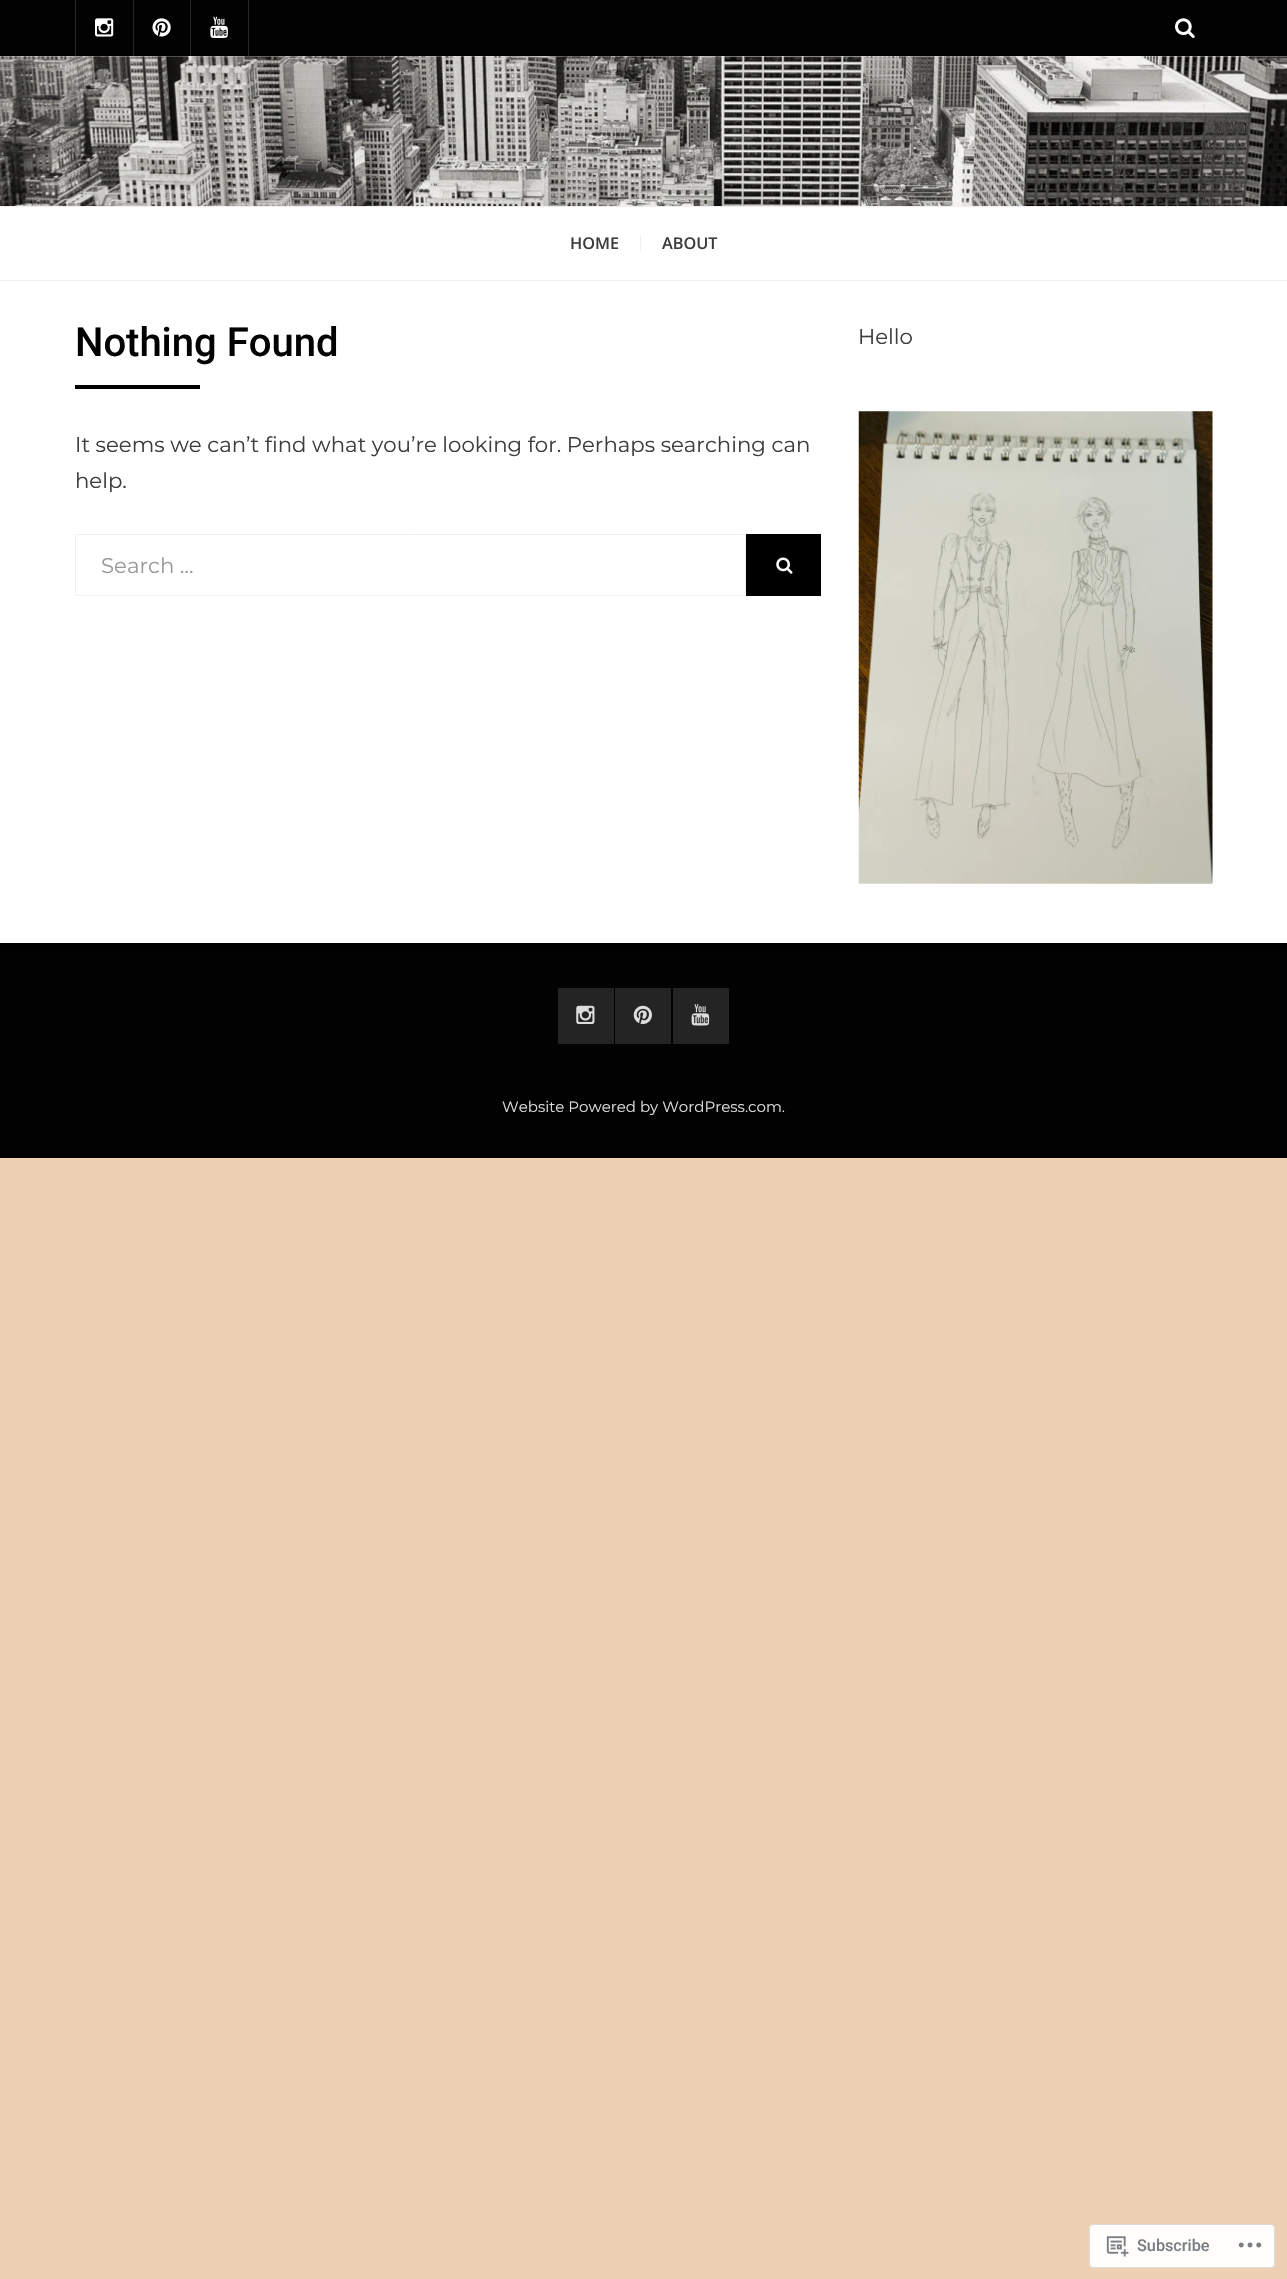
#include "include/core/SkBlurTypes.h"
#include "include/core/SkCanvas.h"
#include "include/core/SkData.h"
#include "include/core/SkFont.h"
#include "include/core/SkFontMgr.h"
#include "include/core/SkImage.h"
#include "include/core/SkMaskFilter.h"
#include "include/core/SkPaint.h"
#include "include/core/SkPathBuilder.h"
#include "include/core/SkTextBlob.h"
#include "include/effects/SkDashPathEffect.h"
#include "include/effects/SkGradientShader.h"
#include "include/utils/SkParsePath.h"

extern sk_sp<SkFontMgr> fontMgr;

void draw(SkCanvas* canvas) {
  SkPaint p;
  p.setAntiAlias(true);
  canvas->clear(SkColorSetRGB(237, 207, 179));
  p.setColor(SK_ColorWHITE);
  canvas->drawRect(SkRect::MakeLTRB(0, 56, 1287, 943), p);
  p.setColor(SkColorSetRGB(2, 2, 2));
  canvas->drawRect(SkRect::MakeLTRB(0, 0, 1287, 56), p);
  p.setColor(SkColorSetRGB(38, 38, 38));
  canvas->drawRect(SkRect::MakeLTRB(75, 0, 76, 56), p);
  canvas->drawImageRect(SkImages::DeferredFromEncodedData(SkData::MakeFromFileName("images/1.png")), SkRect::MakeLTRB(95, 18, 114, 37), SkSamplingOptions());
  canvas->drawRect(SkRect::MakeLTRB(133, 0, 134, 56), p);
  canvas->drawImageRect(SkImages::DeferredFromEncodedData(SkData::MakeFromFileName("images/2.png")), SkRect::MakeLTRB(152, 18, 171, 37), SkSamplingOptions());
  canvas->drawRect(SkRect::MakeLTRB(248, 0, 249, 56), p);
  canvas->drawRect(SkRect::MakeLTRB(190, 0, 191, 56), p);
  canvas->drawImageRect(SkImages::DeferredFromEncodedData(SkData::MakeFromFileName("images/3.png")), SkRect::MakeLTRB(210, 16, 228, 38), SkSamplingOptions());
  canvas->drawImageRect(SkImages::DeferredFromEncodedData(SkData::MakeFromFileName("images/4.png")), SkRect::MakeLTRB(1175, 18, 1195, 38), SkSamplingOptions());
  canvas->drawImageRect(SkImages::DeferredFromEncodedData(SkData::MakeFromFileName("images/5.png")), SkRect::MakeLTRB(0, 56, 1287, 206), SkSamplingOptions());
  p.setColor(SkColorSetRGB(238, 238, 238));
  canvas->drawRect(SkRect::MakeLTRB(0, 206, 1287, 207), p);
  canvas->drawRect(SkRect::MakeLTRB(0, 280, 1287, 281), p);
  canvas->drawRect(SkRect::MakeLTRB(640, 236, 641, 251), p);
  p.setColor(SK_ColorBLACK);
  canvas->drawRect(SkRect::MakeLTRB(75, 385, 200, 389), p);
  p.setStyle(SkPaint::kStroke_Style);
  p.setStrokeWidth(1);
  p.setColor(SkColorSetRGB(238, 238, 238));
  canvas->drawRoundRect(SkRect::MakeLTRB(75.5f, 534.5f, 745.5f, 595.5f), 2, 2, p);
  p.setStyle(SkPaint::kFill_Style);
  p.setColor(SK_ColorBLACK);
  canvas->drawRect(SkRect::MakeLTRB(746, 534, 821, 596), p);
  canvas->drawImageRect(SkImages::DeferredFromEncodedData(SkData::MakeFromFileName("images/6.png")), SkRect::MakeLTRB(776, 557, 793, 574), SkSamplingOptions());
  canvas->drawImageRect(SkImages::DeferredFromEncodedData(SkData::MakeFromFileName("images/7.png")), SkRect::MakeLTRB(858, 411, 1213, 884), SkSamplingOptions());
  p.setColor(SkColorSetRGB(2, 2, 2));
  canvas->drawRect(SkRect::MakeLTRB(0, 950, 1287, 1158), p);
  p.setColor(SK_ColorBLACK);
  canvas->drawRect(SkRect::MakeLTRB(0, 943, 1287, 950), p);
  p.setColor(SkColorSetRGB(36, 36, 36));
  canvas->drawRect(SkRect::MakeLTRB(558, 988, 614, 1044), p);
  canvas->drawImageRect(SkImages::DeferredFromEncodedData(SkData::MakeFromFileName("images/8.png")), SkRect::MakeLTRB(576, 1005, 595, 1024), SkSamplingOptions());
  canvas->drawRect(SkRect::MakeLTRB(615, 988, 671, 1044), p);
  canvas->drawImageRect(SkImages::DeferredFromEncodedData(SkData::MakeFromFileName("images/9.png")), SkRect::MakeLTRB(633, 1005, 652, 1024), SkSamplingOptions());
  canvas->drawRect(SkRect::MakeLTRB(673, 988, 729, 1044), p);
  canvas->drawImageRect(SkImages::DeferredFromEncodedData(SkData::MakeFromFileName("images/10.png")), SkRect::MakeLTRB(691, 1004, 710, 1026), SkSamplingOptions());
  p.setColor(SkColorSetRGB(255, 254, 253));
  canvas->drawRoundRect(SkRect::MakeLTRB(1089.5f, 2224.5f, 1274.5f, 2267.5f), 3.5f, 3.5f, p);
  p.setStyle(SkPaint::kStroke_Style);
  p.setColor(SkColorSetRGB(220, 220, 221));
  canvas->drawRoundRect(SkRect::MakeLTRB(1089.5f, 2224.5f, 1274.5f, 2267.5f), 3.5f, 3.5f, p);
  canvas->drawImageRect(SkImages::DeferredFromEncodedData(SkData::MakeFromFileName("images/11.png")), SkRect::MakeLTRB(1106, 2236, 1129, 2257), SkSamplingOptions());
  canvas->drawImageRect(SkImages::DeferredFromEncodedData(SkData::MakeFromFileName("images/12.png")), SkRect::MakeLTRB(1238, 2242, 1262, 2248), SkSamplingOptions());
  SkFont font1(fontMgr->matchFamilyStyle("Open Sans", SkFontStyle(600, SkFontStyle::kNormal_Width, SkFontStyle::kUpright_Slant)), 16.25f);
  font1.setSubpixel(true);
  p.setStyle(SkPaint::kFill_Style);
  p.setColor(SkColorSetRGB(61, 61, 61));
  canvas->drawString("HOME", 570, 249, font1, p);
  canvas->drawString("ABOUT", 662, 249, font1, p);
  SkFont font2(fontMgr->matchFamilyStyle("Roboto", SkFontStyle(500, SkFontStyle::kNormal_Width, SkFontStyle::kUpright_Slant)), 40);
  font2.setSubpixel(true);
  p.setColor(SkColorSetRGB(2, 2, 2));
  canvas->drawString("Nothing Found", 75, 356, font2, p);
  SkFont font3(fontMgr->matchFamilyStyle("Montserrat", SkFontStyle::Normal()), 21.25f);
  font3.setSubpixel(true);
  p.setColor(SkColorSetRGB(61, 61, 61));
  canvas->drawString("It seems we can’t find what you’re looking for. Perhaps searching can", 75, 452, font3, p);
  canvas->drawString("help.", 75, 488, font3, p);
  p.setColor(SkColorSetRGB(153, 153, 153));
  canvas->drawString("Search …", 101, 573, font3, p);
  p.setColor(SkColorSetRGB(61, 61, 61));
  canvas->drawString("Hello", 858, 344, font3, p);
  SkFont font4(fontMgr->matchFamilyStyle("Montserrat", SkFontStyle::Normal()), 15);
  font4.setSubpixel(true);
  p.setColor(SkColorSetRGB(221, 221, 221));
  canvas->drawString("Website Powered by WordPress.com.", 502, 1112, font4, p);
  SkFont font5(fontMgr->matchFamilyStyle("Roboto", SkFontStyle(500, SkFontStyle::kNormal_Width, SkFontStyle::kUpright_Slant)), 16.25f);
  font5.setSubpixel(true);
  p.setColor(SkColorSetRGB(122, 126, 131));
  canvas->drawString("Subscribe", 1137, 2251, font5, p);
}
